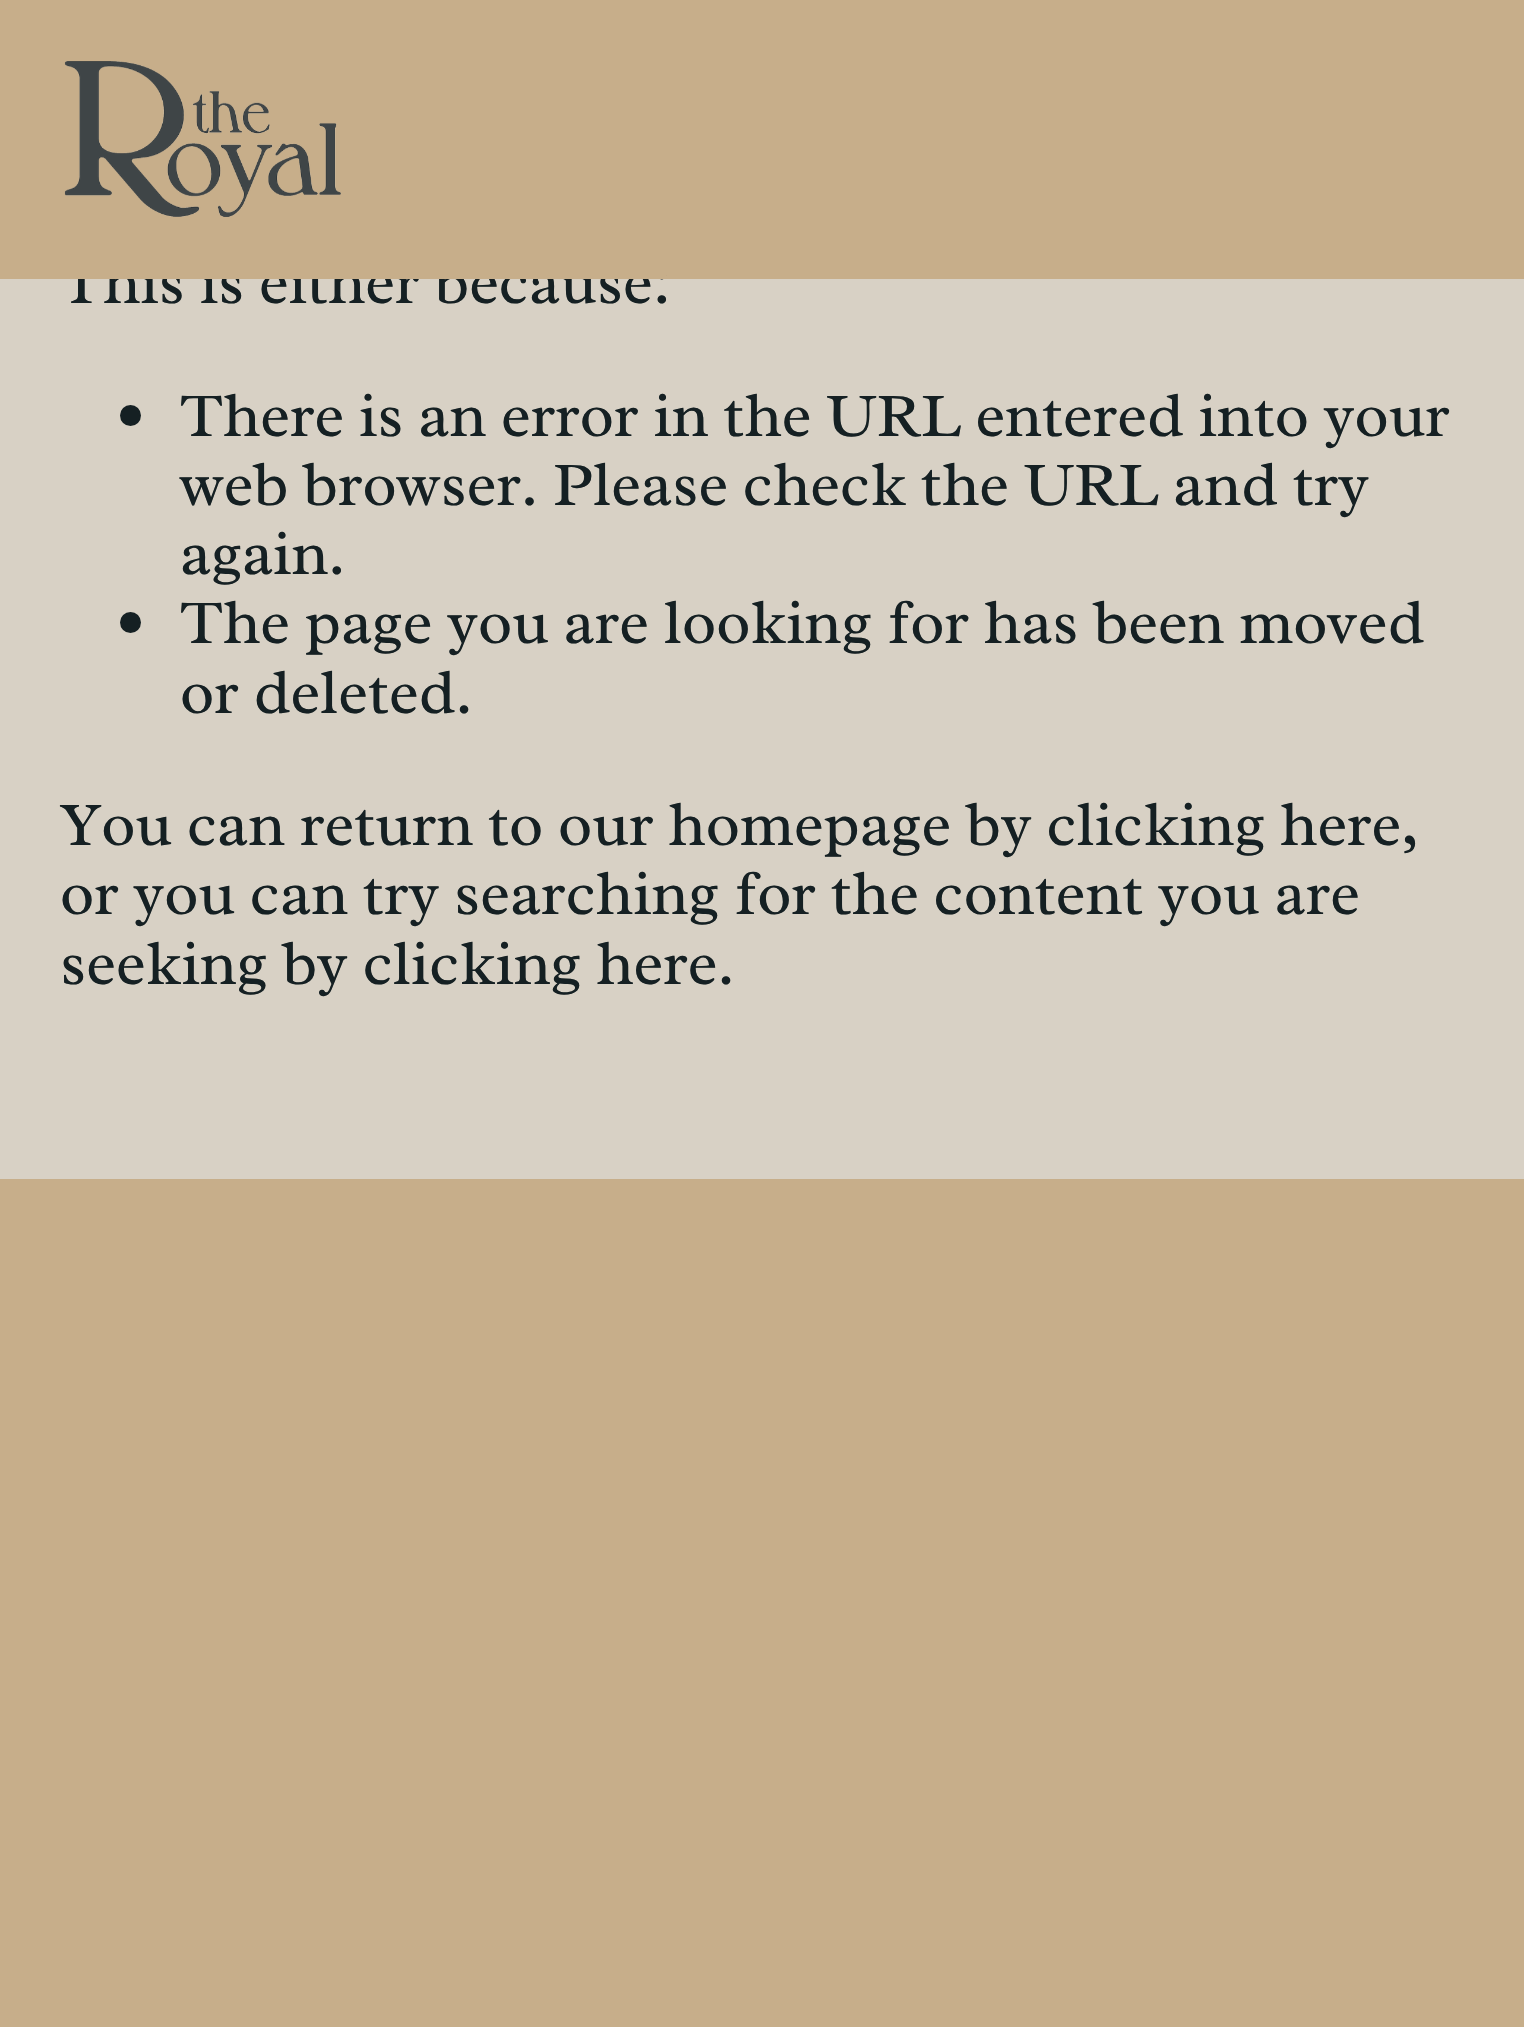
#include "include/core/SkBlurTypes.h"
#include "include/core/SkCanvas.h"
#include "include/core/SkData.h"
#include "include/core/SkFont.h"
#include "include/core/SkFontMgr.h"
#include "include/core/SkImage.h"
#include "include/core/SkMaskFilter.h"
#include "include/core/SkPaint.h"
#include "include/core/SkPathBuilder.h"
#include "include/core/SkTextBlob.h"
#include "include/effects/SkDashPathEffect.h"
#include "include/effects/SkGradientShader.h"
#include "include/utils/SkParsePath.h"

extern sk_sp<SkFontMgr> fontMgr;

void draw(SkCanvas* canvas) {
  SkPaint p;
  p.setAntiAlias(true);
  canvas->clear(SkColorSetRGB(199, 174, 138));
  canvas->drawImageRect(SkImages::DeferredFromEncodedData(SkData::MakeFromFileName("images/1.png")), SkRect::MakeLTRB(64, 61, 341, 217), SkSamplingOptions());
  p.setColor(SkColorSetRGB(216, 209, 197));
  canvas->drawRect(SkRect::MakeLTRB(0, 279, 1524, 1179), p);
  p.setColor(SkColorSetRGB(21, 32, 35));
  canvas->drawCircle(130.5f, 415.5f, 10.5f, p);
  canvas->drawCircle(130.5f, 622.5f, 10.5f, p);
  SkFont font1(fontMgr->matchFamilyStyle("Radley", SkFontStyle::Normal()), 63);
  font1.setSubpixel(true);
  canvas->drawString("This is either because:", 60, 303, font1, p);
  p.setColor(SkColorSetRGB(199, 174, 138));
  canvas->drawRect(SkRect::MakeLTRB(61, 260, 666, 279), p);
  p.setColor(SkColorSetRGB(21, 32, 35));
  canvas->drawString("There is an error in the URL entered into your", 180, 436, font1, p);
  canvas->drawString("web browser. Please check the URL and try", 180, 505, font1, p);
  canvas->drawString("again.", 180, 574, font1, p);
  canvas->drawString("The page you are looking for has been moved", 180, 643, font1, p);
  canvas->drawString("or deleted.", 180, 713, font1, p);
  canvas->drawString("You can return to our homepage by clicking here,", 60, 845, font1, p);
  canvas->drawString("or you can try searching for the content you are", 60, 914, font1, p);
  canvas->drawString("seeking by clicking here.", 60, 984, font1, p);
}
